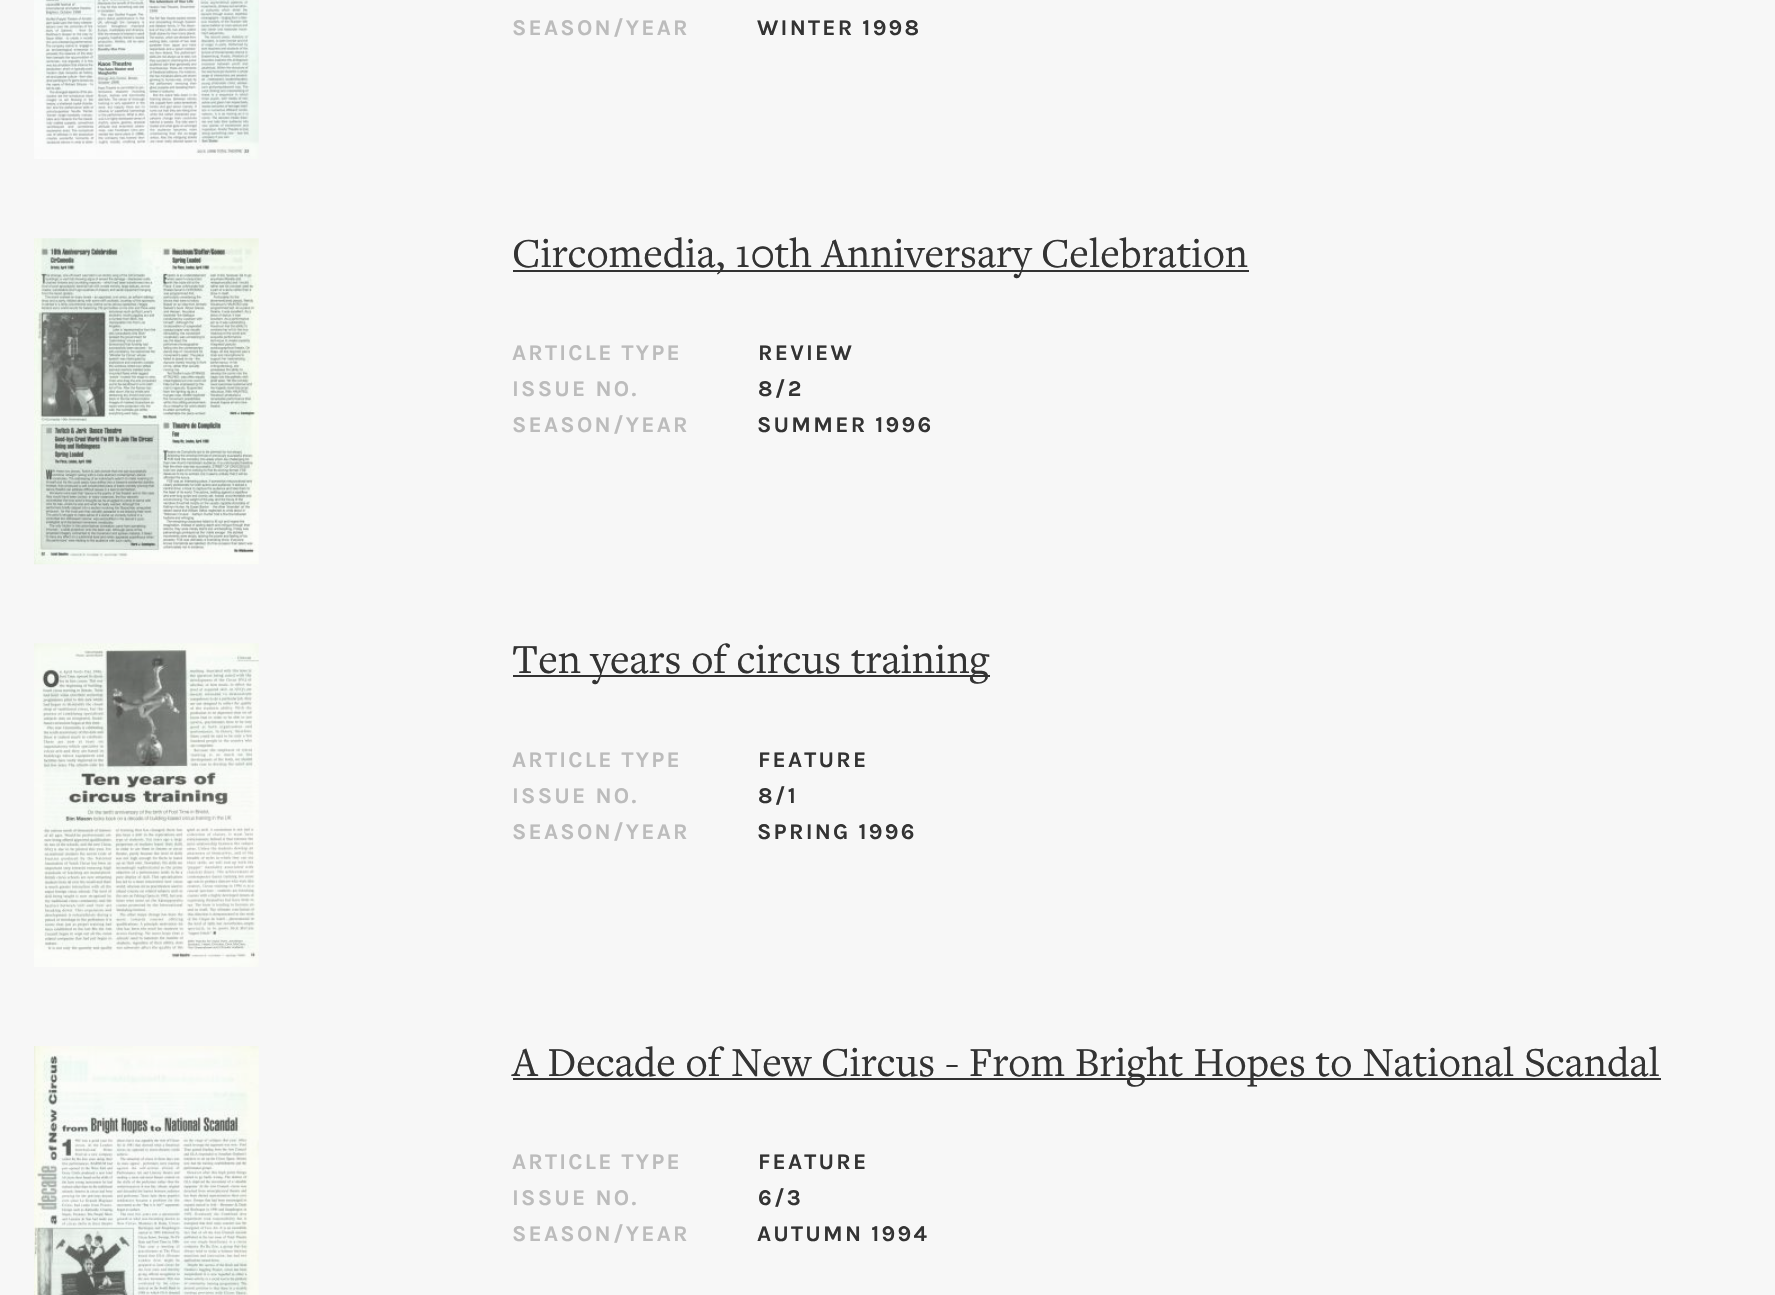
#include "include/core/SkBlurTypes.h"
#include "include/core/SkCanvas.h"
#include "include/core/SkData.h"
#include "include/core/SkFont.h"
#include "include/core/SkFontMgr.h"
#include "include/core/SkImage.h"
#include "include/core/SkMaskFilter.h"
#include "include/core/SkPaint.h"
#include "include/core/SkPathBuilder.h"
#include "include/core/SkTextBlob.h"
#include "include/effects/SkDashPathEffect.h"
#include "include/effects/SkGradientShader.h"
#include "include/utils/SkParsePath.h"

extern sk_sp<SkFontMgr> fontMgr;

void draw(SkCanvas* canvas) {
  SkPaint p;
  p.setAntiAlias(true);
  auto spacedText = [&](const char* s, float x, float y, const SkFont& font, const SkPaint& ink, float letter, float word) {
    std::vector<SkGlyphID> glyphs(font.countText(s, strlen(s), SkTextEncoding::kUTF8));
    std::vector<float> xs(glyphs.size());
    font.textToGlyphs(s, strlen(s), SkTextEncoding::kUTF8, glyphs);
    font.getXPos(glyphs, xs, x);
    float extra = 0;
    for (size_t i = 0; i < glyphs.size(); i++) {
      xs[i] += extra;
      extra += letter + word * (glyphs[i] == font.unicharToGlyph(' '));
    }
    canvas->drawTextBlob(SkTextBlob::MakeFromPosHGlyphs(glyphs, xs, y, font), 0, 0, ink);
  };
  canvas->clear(SkColorSetRGB(247, 247, 247));
  canvas->drawImageRect(SkImages::DeferredFromEncodedData(SkData::MakeFromFileName("images/1.png")), SkRect::MakeLTRB(34, 0, 259, 159), SkSamplingOptions());
  canvas->drawImageRect(SkImages::DeferredFromEncodedData(SkData::MakeFromFileName("images/2.png")), SkRect::MakeLTRB(34, 238, 259, 565), SkSamplingOptions());
  p.setColor(SkColorSetRGB(51, 51, 51));
  canvas->drawRect(SkRect::MakeLTRB(513, 270, 1249, 272), p);
  canvas->drawImageRect(SkImages::DeferredFromEncodedData(SkData::MakeFromFileName("images/3.png")), SkRect::MakeLTRB(34, 643, 259, 967), SkSamplingOptions());
  canvas->drawRect(SkRect::MakeLTRB(513, 675, 990, 677), p);
  canvas->drawImageRect(SkImages::DeferredFromEncodedData(SkData::MakeFromFileName("images/4.png")), SkRect::MakeLTRB(34, 1046, 259, 1295), SkSamplingOptions());
  canvas->drawRect(SkRect::MakeLTRB(513, 1078, 1661, 1080), p);
  SkFont font1(fontMgr->matchFamilyStyle("Karla", SkFontStyle::Bold()), 22.5f);
  font1.setSubpixel(true);
  p.setColor(SkColorSetRGB(188, 188, 188));
  spacedText("SEASON/YEAR", 512, 35, font1, p, 2.25f, 0);
  p.setColor(SkColorSetRGB(51, 51, 51));
  spacedText("WINTER 1998", 757, 35, font1, p, 2.25f, 0);
  SkFont font2(fontMgr->matchFamilyStyle("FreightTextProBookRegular", SkFontStyle::Normal()), 42.75f);
  font2.setSubpixel(true);
  canvas->drawString("Circomedia, 10th Anniversary Celebration", 512, 267, font2, p);
  p.setColor(SkColorSetRGB(188, 188, 188));
  spacedText("ARTICLE TYPE", 512, 360, font1, p, 2.25f, 0);
  p.setColor(SkColorSetRGB(51, 51, 51));
  spacedText("REVIEW", 758, 360, font1, p, 2.25f, 0);
  p.setColor(SkColorSetRGB(188, 188, 188));
  spacedText("ISSUE NO.", 512, 396, font1, p, 2.25f, 0);
  p.setColor(SkColorSetRGB(51, 51, 51));
  spacedText("8/2", 758, 396, font1, p, 2.25f, 0);
  p.setColor(SkColorSetRGB(188, 188, 188));
  spacedText("SEASON/YEAR", 512, 432, font1, p, 2.25f, 0);
  p.setColor(SkColorSetRGB(51, 51, 51));
  spacedText("SUMMER 1996", 757, 432, font1, p, 2.25f, 0);
  canvas->drawString("Ten years of circus training", 512, 673, font2, p);
  p.setColor(SkColorSetRGB(188, 188, 188));
  spacedText("ARTICLE TYPE", 512, 767, font1, p, 2.25f, 0);
  p.setColor(SkColorSetRGB(51, 51, 51));
  spacedText("FEATURE", 758, 767, font1, p, 2.25f, 0);
  p.setColor(SkColorSetRGB(188, 188, 188));
  spacedText("ISSUE NO.", 512, 803, font1, p, 2.25f, 0);
  p.setColor(SkColorSetRGB(51, 51, 51));
  spacedText("8/1", 758, 803, font1, p, 2.25f, 0);
  p.setColor(SkColorSetRGB(188, 188, 188));
  spacedText("SEASON/YEAR", 512, 839, font1, p, 2.25f, 0);
  p.setColor(SkColorSetRGB(51, 51, 51));
  spacedText("SPRING 1996", 757, 839, font1, p, 2.25f, 0);
  canvas->drawString("A Decade of New Circus - From Bright Hopes to National Scandal", 512, 1076, font2, p);
  p.setColor(SkColorSetRGB(188, 188, 188));
  spacedText("ARTICLE TYPE", 512, 1169, font1, p, 2.25f, 0);
  p.setColor(SkColorSetRGB(51, 51, 51));
  spacedText("FEATURE", 758, 1169, font1, p, 2.25f, 0);
  p.setColor(SkColorSetRGB(188, 188, 188));
  spacedText("ISSUE NO.", 512, 1205, font1, p, 2.25f, 0);
  p.setColor(SkColorSetRGB(51, 51, 51));
  spacedText("6/3", 758, 1205, font1, p, 2.25f, 0);
  p.setColor(SkColorSetRGB(188, 188, 188));
  spacedText("SEASON/YEAR", 512, 1241, font1, p, 2.25f, 0);
  p.setColor(SkColorSetRGB(51, 51, 51));
  spacedText("AUTUMN 1994", 757, 1241, font1, p, 2.25f, 0);
}
